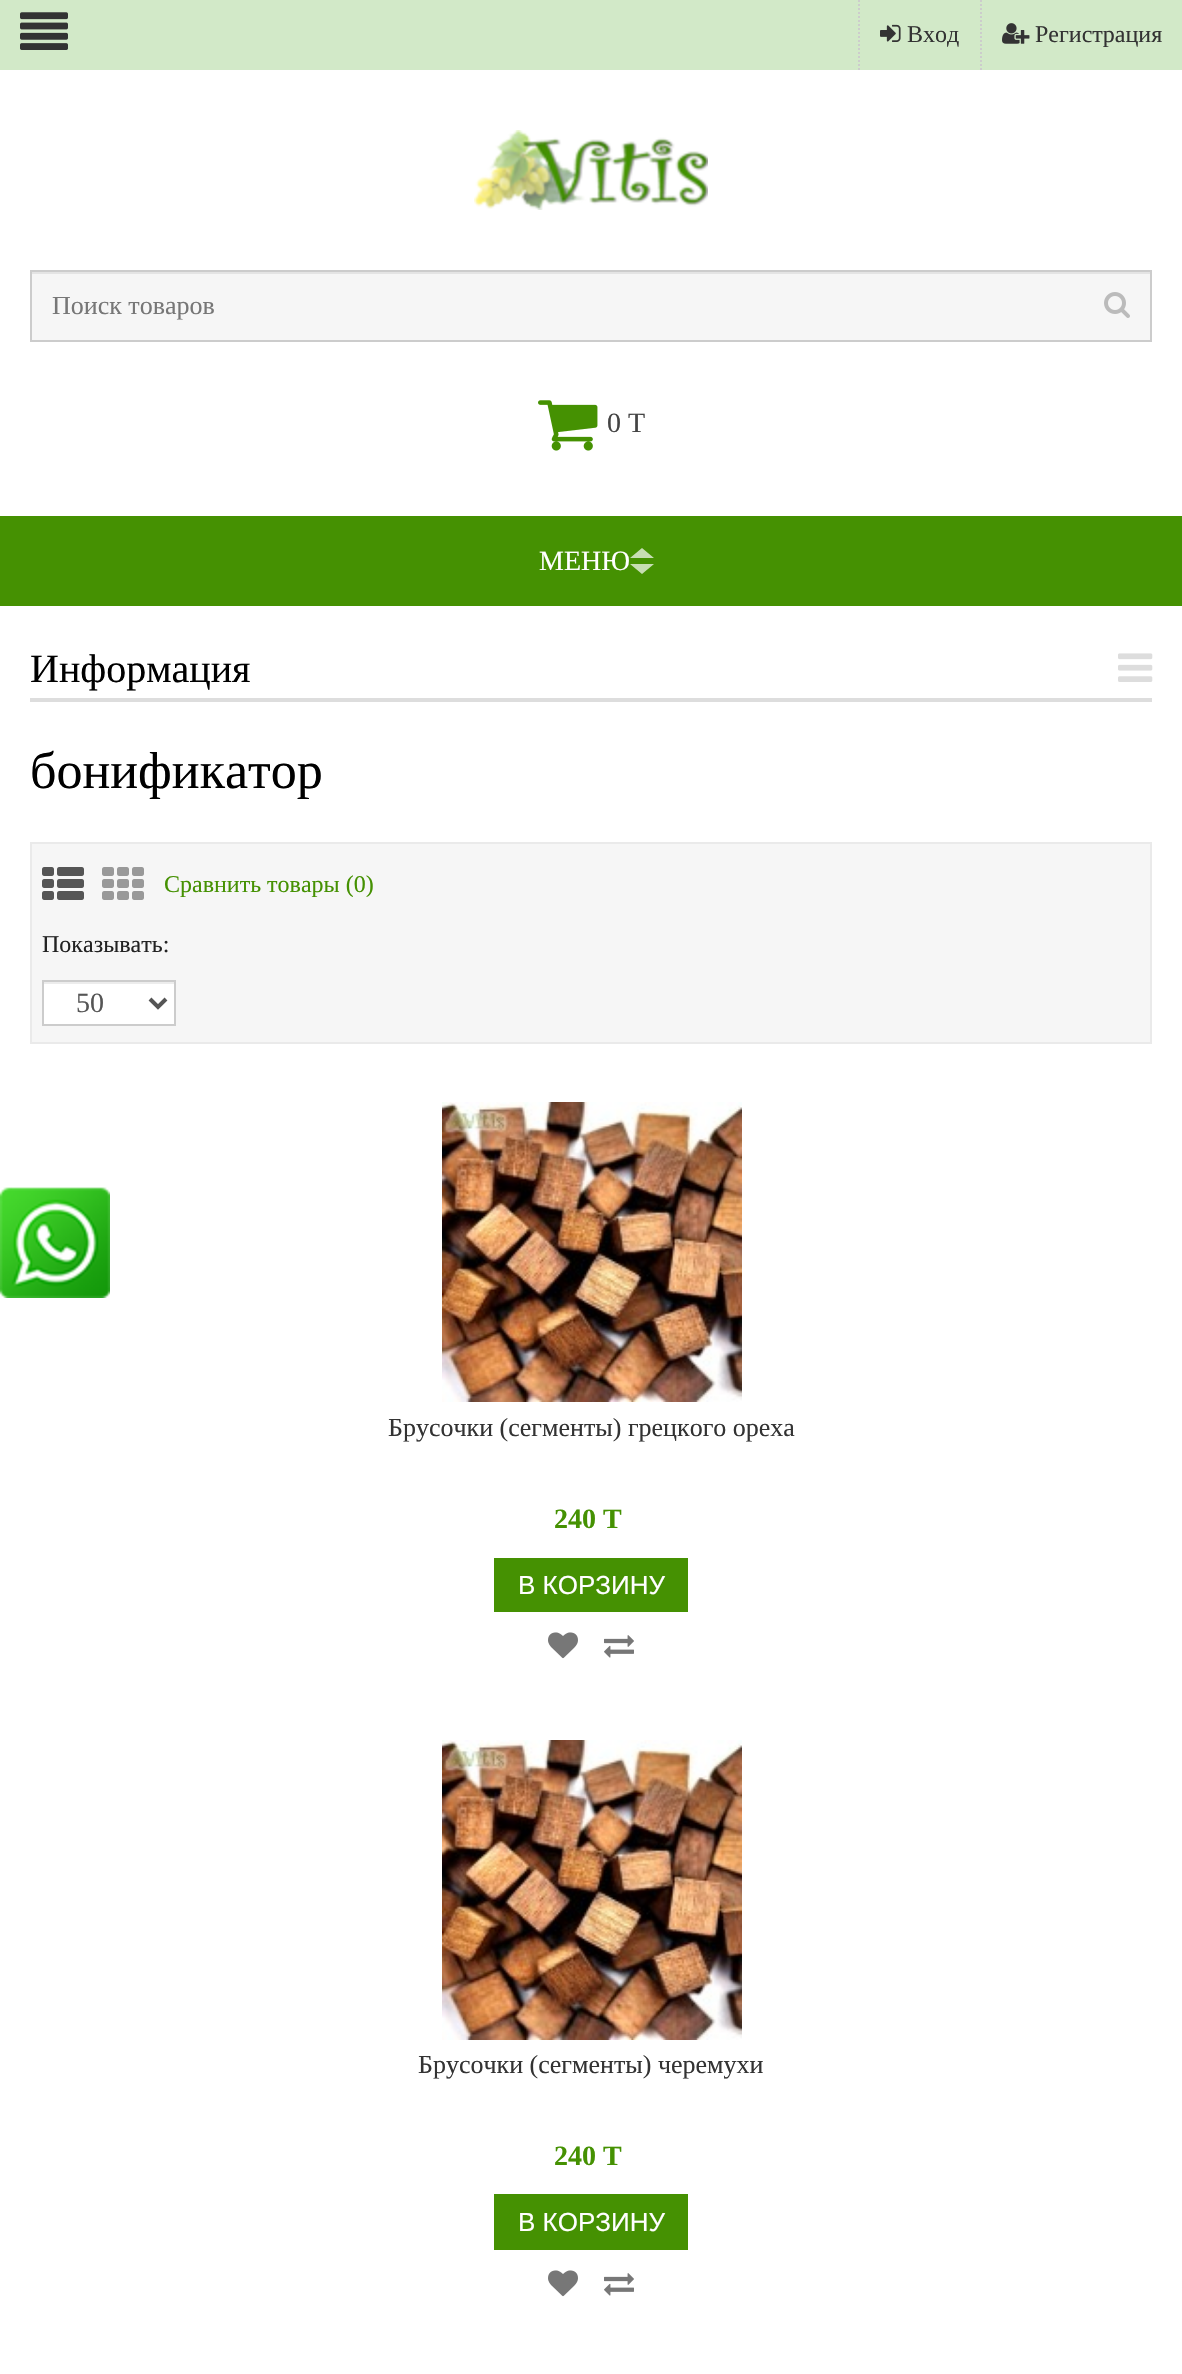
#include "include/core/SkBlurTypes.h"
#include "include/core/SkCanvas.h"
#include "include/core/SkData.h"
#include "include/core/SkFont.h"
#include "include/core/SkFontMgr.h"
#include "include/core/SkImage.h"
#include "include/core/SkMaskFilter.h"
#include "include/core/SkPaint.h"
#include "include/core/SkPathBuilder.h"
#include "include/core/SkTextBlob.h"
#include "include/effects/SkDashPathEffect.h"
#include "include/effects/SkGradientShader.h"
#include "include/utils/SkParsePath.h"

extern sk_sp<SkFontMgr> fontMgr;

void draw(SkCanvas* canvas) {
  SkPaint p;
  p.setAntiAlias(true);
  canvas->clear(SK_ColorWHITE);
  p.setColor(SkColorSetRGB(210, 233, 200));
  canvas->drawRect(SkRect::MakeLTRB(0, 0, 1182, 70), p);
  canvas->drawImageRect(SkImages::DeferredFromEncodedData(SkData::MakeFromFileName("images/1.png")), SkRect::MakeLTRB(20, 12, 68, 50), SkSamplingOptions());
  p.setStyle(SkPaint::kStroke_Style);
  p.setStrokeWidth(2);
  p.setColor(SkColorSetRGB(204, 204, 204));
  p.setPathEffect(SkDashPathEffect::Make({{2, 2}}, 0));
  canvas->drawPath(SkPathBuilder().moveTo(859, 0).lineTo(859, 70).detach(), p);
  p.setPathEffect(nullptr);
  canvas->drawImageRect(SkImages::DeferredFromEncodedData(SkData::MakeFromFileName("images/2.png")), SkRect::MakeLTRB(880, 24, 901, 42), SkSamplingOptions());
  p.setPathEffect(SkDashPathEffect::Make({{2, 2}}, 0));
  canvas->drawPath(SkPathBuilder().moveTo(981, 0).lineTo(981, 70).detach(), p);
  p.setPathEffect(nullptr);
  canvas->drawImageRect(SkImages::DeferredFromEncodedData(SkData::MakeFromFileName("images/3.png")), SkRect::MakeLTRB(1002, 23, 1030, 44), SkSamplingOptions());
  canvas->drawImageRect(SkImages::DeferredFromEncodedData(SkData::MakeFromFileName("images/4.png")), SkRect::MakeLTRB(474, 130, 708, 210), SkSamplingOptions());
  p.setStyle(SkPaint::kFill_Style);
  p.setColor(SkColorSetRGB(246, 246, 246));
  canvas->drawRect(SkRect::MakeLTRB(32, 274, 1150, 340), p);
  p.setColor(SkColorSetRGB(228, 228, 228));
  canvas->drawRect(SkRect::MakeLTRB(32, 272, 1150, 274), p);
  p.setStyle(SkPaint::kStroke_Style);
  p.setColor(SkColorSetRGB(204, 204, 204));
  canvas->drawRect(SkRect::MakeLTRB(31, 271, 1151, 341), p);
  canvas->drawImageRect(SkImages::DeferredFromEncodedData(SkData::MakeFromFileName("images/5.png")), SkRect::MakeLTRB(1104, 292, 1130, 318), SkSamplingOptions());
  canvas->drawImageRect(SkImages::DeferredFromEncodedData(SkData::MakeFromFileName("images/6.png")), SkRect::MakeLTRB(538, 400, 598, 451), SkSamplingOptions());
  p.setStyle(SkPaint::kFill_Style);
  p.setColor(SkColorSetRGB(69, 145, 2));
  canvas->drawRect(SkRect::MakeLTRB(0, 516, 1182, 606), p);
  p.setColor(SkColorSetRGB(199, 222, 179));
  canvas->drawPath(SkPathBuilder().moveTo(654, 558).lineTo(630, 558).lineTo(642, 548).close().moveTo(630, 564).lineTo(654, 564).lineTo(642, 574).close().detach(), p);
  p.setColor(SkColorSetRGB(221, 221, 221));
  canvas->drawRect(SkRect::MakeLTRB(30, 698, 1152, 702), p);
  canvas->drawImageRect(SkImages::DeferredFromEncodedData(SkData::MakeFromFileName("images/7.png")), SkRect::MakeLTRB(1118, 653, 1153, 682), SkSamplingOptions());
  p.setColor(SkColorSetRGB(246, 246, 246));
  canvas->drawRect(SkRect::MakeLTRB(31, 843, 1151, 1043), p);
  p.setStyle(SkPaint::kStroke_Style);
  p.setColor(SkColorSetRGB(234, 234, 234));
  canvas->drawRect(SkRect::MakeLTRB(31, 843, 1151, 1043), p);
  canvas->drawImageRect(SkImages::DeferredFromEncodedData(SkData::MakeFromFileName("images/8.png")), SkRect::MakeLTRB(42, 867, 84, 900), SkSamplingOptions());
  canvas->drawImageRect(SkImages::DeferredFromEncodedData(SkData::MakeFromFileName("images/9.png")), SkRect::MakeLTRB(102, 867, 144, 900), SkSamplingOptions());
  p.setStyle(SkPaint::kFill_Style);
  p.setColor(SK_ColorWHITE);
  canvas->drawRect(SkRect::MakeLTRB(44, 984, 174, 1024), p);
  p.setColor(SkColorSetRGB(236, 236, 236));
  canvas->drawRect(SkRect::MakeLTRB(44, 982, 174, 984), p);
  p.setStyle(SkPaint::kStroke_Style);
  p.setColor(SkColorSetRGB(204, 204, 204));
  canvas->drawRect(SkRect::MakeLTRB(43, 981, 175, 1025), p);
  p.setStrokeWidth(4);
  p.setColor(SkColorSetRGB(85, 85, 85));
  canvas->drawPath(SkPathBuilder().moveTo(150, 999).lineTo(158, 1007).lineTo(166, 999).detach(), p);
  canvas->drawImageRect(SkImages::DeferredFromEncodedData(SkData::MakeFromFileName("images/10.png")), SkRect::MakeLTRB(0, 1187, 110, 1298), SkSamplingOptions());
  canvas->drawImageRect(SkImages::DeferredFromEncodedData(SkData::MakeFromFileName("images/11.png")), SkRect::MakeLTRB(442, 1102, 742, 1402), SkSamplingOptions());
  p.setStyle(SkPaint::kFill_Style);
  p.setColor(SkColorSetRGB(69, 145, 2));
  canvas->drawRect(SkRect::MakeLTRB(494, 1558, 688, 1612), p);
  canvas->drawImageRect(SkImages::DeferredFromEncodedData(SkData::MakeFromFileName("images/12.png")), SkRect::MakeLTRB(548, 1632, 578, 1659), SkSamplingOptions());
  canvas->drawImageRect(SkImages::DeferredFromEncodedData(SkData::MakeFromFileName("images/13.png")), SkRect::MakeLTRB(604, 1635, 634, 1658), SkSamplingOptions());
  canvas->drawImageRect(SkImages::DeferredFromEncodedData(SkData::MakeFromFileName("images/11.png")), SkRect::MakeLTRB(442, 1740, 742, 2040), SkSamplingOptions());
  canvas->drawRect(SkRect::MakeLTRB(494, 2194, 688, 2250), p);
  canvas->drawImageRect(SkImages::DeferredFromEncodedData(SkData::MakeFromFileName("images/12.png")), SkRect::MakeLTRB(548, 2270, 578, 2297), SkSamplingOptions());
  canvas->drawImageRect(SkImages::DeferredFromEncodedData(SkData::MakeFromFileName("images/13.png")), SkRect::MakeLTRB(604, 2273, 634, 2296), SkSamplingOptions());
  SkFont font1(fontMgr->matchFamilyStyle("Liberation Serif", SkFontStyle::Normal()), 24);
  font1.setSubpixel(true);
  p.setColor(SkColorSetRGB(51, 51, 51));
  canvas->drawString("Вход", 907, 42, font1, p);
  canvas->drawString("Регистрация", 1035, 42, font1, p);
  SkFont font2(fontMgr->matchFamilyStyle("Liberation Serif", SkFontStyle::Normal()), 26);
  font2.setSubpixel(true);
  p.setColor(SkColorSetRGB(119, 119, 119));
  canvas->drawString("Поиск товаров", 52, 314, font2, p);
  SkFont font3(fontMgr->matchFamilyStyle("Liberation Serif", SkFontStyle::Normal()), 28);
  font3.setSubpixel(true);
  p.setColor(SkColorSetRGB(68, 68, 68));
  canvas->drawString("0 T", 607, 432, font3, p);
  p.setColor(SK_ColorWHITE);
  canvas->drawString("МЕНЮ", 539, 570, font3, p);
  SkFont font4(fontMgr->matchFamilyStyle("Liberation Serif", SkFontStyle::Normal()), 40);
  font4.setSubpixel(true);
  p.setColor(SK_ColorBLACK);
  canvas->drawString("Информация", 30, 682, font4, p);
  SkFont font5(fontMgr->matchFamilyStyle("Liberation Serif", SkFontStyle::Normal()), 52);
  font5.setSubpixel(true);
  canvas->drawString("бонификатор", 30, 788, font5, p);
  p.setColor(SkColorSetRGB(69, 145, 2));
  canvas->drawString("Сравнить товары (0)", 164, 892, font1, p);
  p.setColor(SkColorSetRGB(34, 34, 34));
  canvas->drawString("Показывать:", 42, 952, font1, p);
  p.setColor(SkColorSetRGB(85, 85, 85));
  canvas->drawString("50", 76, 1012, font3, p);
  p.setColor(SkColorSetRGB(51, 51, 51));
  canvas->drawString("Брусочки (сегменты) грецкого ореха", 388, 1436, font2, p);
  SkFont font6(fontMgr->matchFamilyStyle("Liberation Serif", SkFontStyle::Bold()), 28);
  font6.setSubpixel(true);
  p.setColor(SkColorSetRGB(69, 145, 2));
  canvas->drawString("240 T", 554, 1528, font6, p);
  SkFont font7(fontMgr->matchFamilyStyle("Liberation Sans", SkFontStyle::Normal()), 26);
  font7.setSubpixel(true);
  p.setColor(SK_ColorWHITE);
  canvas->drawString("В КОРЗИНУ", 518, 1594, font7, p);
  p.setColor(SkColorSetRGB(51, 51, 51));
  canvas->drawString("Брусочки (сегменты) черемухи", 418, 2073, font2, p);
  p.setColor(SkColorSetRGB(69, 145, 2));
  canvas->drawString("240 T", 554, 2165, font6, p);
  p.setColor(SK_ColorWHITE);
  canvas->drawString("В КОРЗИНУ", 518, 2231, font7, p);
}
